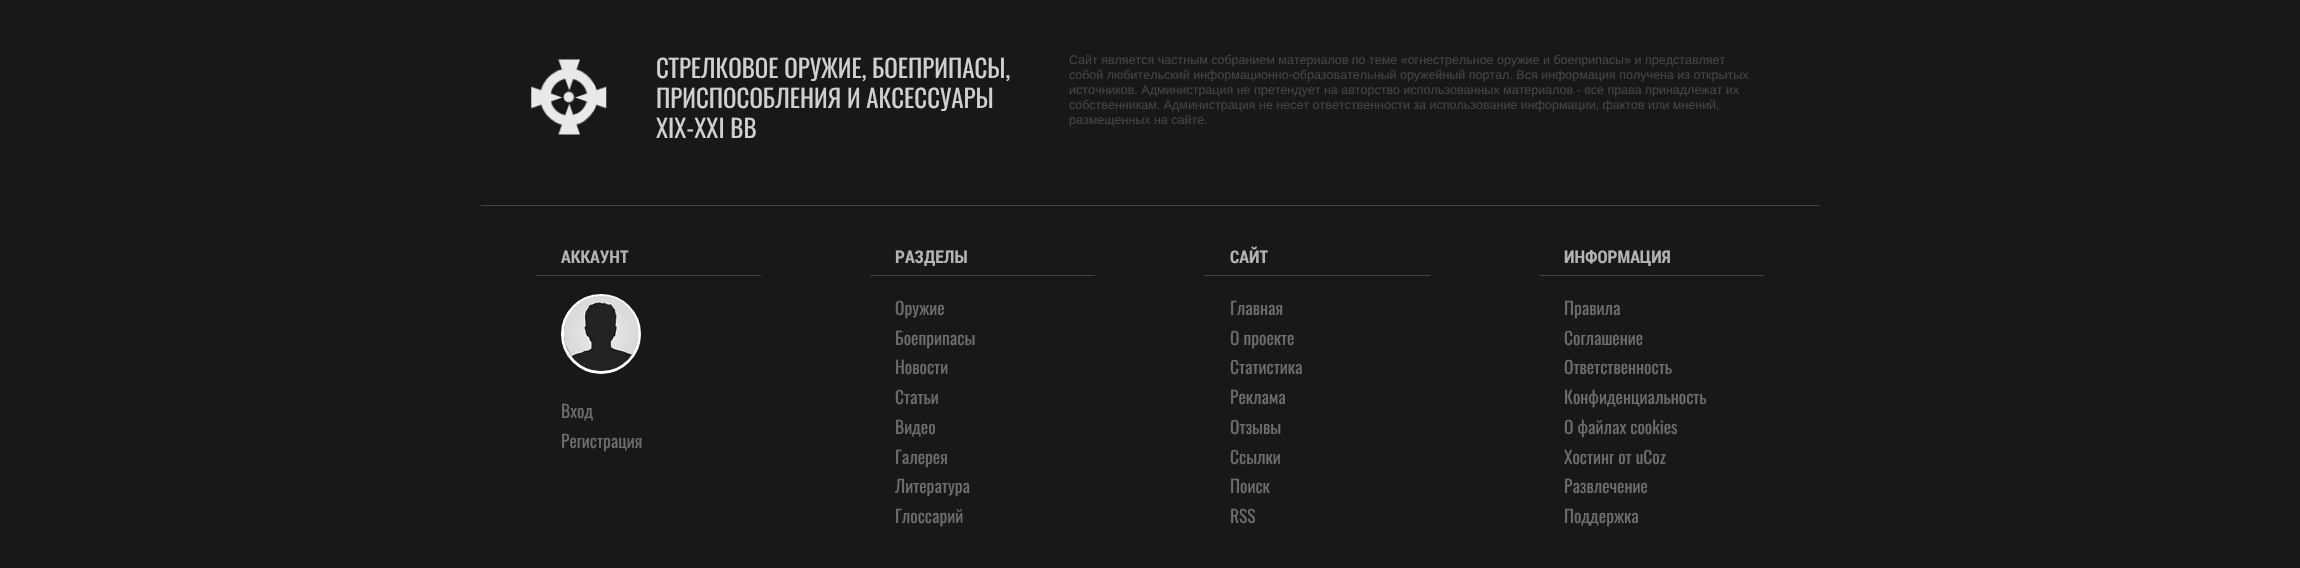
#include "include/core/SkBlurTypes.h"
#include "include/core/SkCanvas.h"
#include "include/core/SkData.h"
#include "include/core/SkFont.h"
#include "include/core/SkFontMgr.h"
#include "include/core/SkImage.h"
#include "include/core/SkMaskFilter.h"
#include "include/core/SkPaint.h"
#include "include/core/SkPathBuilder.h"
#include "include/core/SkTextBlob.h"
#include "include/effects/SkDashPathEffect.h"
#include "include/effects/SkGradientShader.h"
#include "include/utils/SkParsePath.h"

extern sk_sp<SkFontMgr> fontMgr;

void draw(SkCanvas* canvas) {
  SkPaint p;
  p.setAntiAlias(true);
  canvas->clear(SkColorSetRGB(24, 24, 24));
  canvas->drawImageRect(SkImages::DeferredFromEncodedData(SkData::MakeFromFileName("images/1.png")), SkRect::MakeLTRB(531, 59, 607, 135), SkSamplingOptions());
  p.setColor(SkColorSetRGB(68, 68, 68));
  canvas->drawRect(SkRect::MakeLTRB(481, 205, 1819, 206), p);
  canvas->drawRect(SkRect::MakeLTRB(536, 275, 761, 276), p);
  p.setStyle(SkPaint::kStroke_Style);
  p.setStrokeWidth(3);
  p.setColor(SK_ColorWHITE);
  canvas->drawCircle(601, 334, 38.5f, p);
  canvas->drawImageRect(SkImages::DeferredFromEncodedData(SkData::MakeFromFileName("images/2.png")), SkRect::MakeLTRB(564, 296, 639, 371), SkSamplingOptions());
  p.setStyle(SkPaint::kFill_Style);
  p.setColor(SkColorSetRGB(68, 68, 68));
  canvas->drawRect(SkRect::MakeLTRB(870, 275, 1095, 276), p);
  canvas->drawRect(SkRect::MakeLTRB(1205, 275, 1430, 276), p);
  canvas->drawRect(SkRect::MakeLTRB(1539, 275, 1764, 276), p);
  SkFont font1(fontMgr->matchFamilyStyle("Oswald", SkFontStyle::Normal()), 25);
  font1.setSubpixel(true);
  p.setColor(SkColorSetRGB(208, 208, 208));
  canvas->drawString("СТРЕЛКОВОЕ ОРУЖИЕ, БОЕПРИПАСЫ,", 656, 78, font1, p);
  canvas->drawString("ПРИСПОСОБЛЕНИЯ И АКСЕССУАРЫ", 656, 108, font1, p);
  canvas->drawString("XIX-XXI ВВ", 656, 138, font1, p);
  SkFont font2(fontMgr->matchFamilyStyle("Liberation Sans", SkFontStyle::Normal()), 12.5f);
  font2.setSubpixel(true);
  p.setColor(SkColorSetRGB(68, 68, 68));
  canvas->drawString("Сайт является частным собранием материалов по теме «огнестрельное оружие и боеприпасы» и представляет", 1069, 64, font2, p);
  canvas->drawString("собой любительский информационно-образовательный оружейный портал. Вся информация получена из открытых", 1069, 79, font2, p);
  canvas->drawString("источников. Администрация не претендует на авторство использованных материалов - все права принадлежат их", 1069, 94, font2, p);
  canvas->drawString("собственникам. Администрация не несет ответственности за использование информации, фактов или мнений,", 1069, 109, font2, p);
  canvas->drawString("размещенных на сайте.", 1069, 124, font2, p);
  SkFont font3(fontMgr->matchFamilyStyle("Roboto Condensed", SkFontStyle::Bold()), 17.5f);
  font3.setSubpixel(true);
  p.setColor(SkColorSetRGB(179, 179, 179));
  canvas->drawString("АККАУНТ", 561, 263, font3, p);
  SkFont font4(fontMgr->matchFamilyStyle("Oswald", SkFontStyle::Normal()), 17.5f);
  font4.setSubpixel(true);
  p.setColor(SkColorSetRGB(109, 109, 109));
  canvas->drawString("Вход", 561, 418, font4, p);
  canvas->drawString("Регистрация", 561, 448, font4, p);
  p.setColor(SkColorSetRGB(179, 179, 179));
  canvas->drawString("РАЗДЕЛЫ", 895, 263, font3, p);
  p.setColor(SkColorSetRGB(109, 109, 109));
  canvas->drawString("Оружие", 895, 315, font4, p);
  canvas->drawString("Боеприпасы", 895, 345, font4, p);
  canvas->drawString("Новости", 895, 374, font4, p);
  canvas->drawString("Статьи", 895, 404, font4, p);
  canvas->drawString("Видео", 895, 434, font4, p);
  canvas->drawString("Галерея", 895, 464, font4, p);
  canvas->drawString("Литература", 895, 493, font4, p);
  canvas->drawString("Глоссарий", 895, 523, font4, p);
  p.setColor(SkColorSetRGB(179, 179, 179));
  canvas->drawString("САЙТ", 1230, 263, font3, p);
  p.setColor(SkColorSetRGB(109, 109, 109));
  canvas->drawString("Главная", 1230, 315, font4, p);
  canvas->drawString("О проекте", 1230, 345, font4, p);
  canvas->drawString("Статистика", 1230, 374, font4, p);
  canvas->drawString("Реклама", 1230, 404, font4, p);
  canvas->drawString("Отзывы", 1230, 434, font4, p);
  canvas->drawString("Ссылки", 1230, 464, font4, p);
  canvas->drawString("Поиск", 1230, 493, font4, p);
  canvas->drawString("RSS", 1230, 523, font4, p);
  p.setColor(SkColorSetRGB(179, 179, 179));
  canvas->drawString("ИНФОРМАЦИЯ", 1564, 263, font3, p);
  p.setColor(SkColorSetRGB(109, 109, 109));
  canvas->drawString("Правила", 1564, 315, font4, p);
  canvas->drawString("Соглашение", 1564, 345, font4, p);
  canvas->drawString("Ответственность", 1564, 374, font4, p);
  canvas->drawString("Конфиденциальность", 1564, 404, font4, p);
  canvas->drawString("О файлах cookies", 1564, 434, font4, p);
  canvas->drawString("Хостинг от uCoz", 1564, 464, font4, p);
  canvas->drawString("Развлечение", 1564, 493, font4, p);
  canvas->drawString("Поддержка", 1564, 523, font4, p);
}
